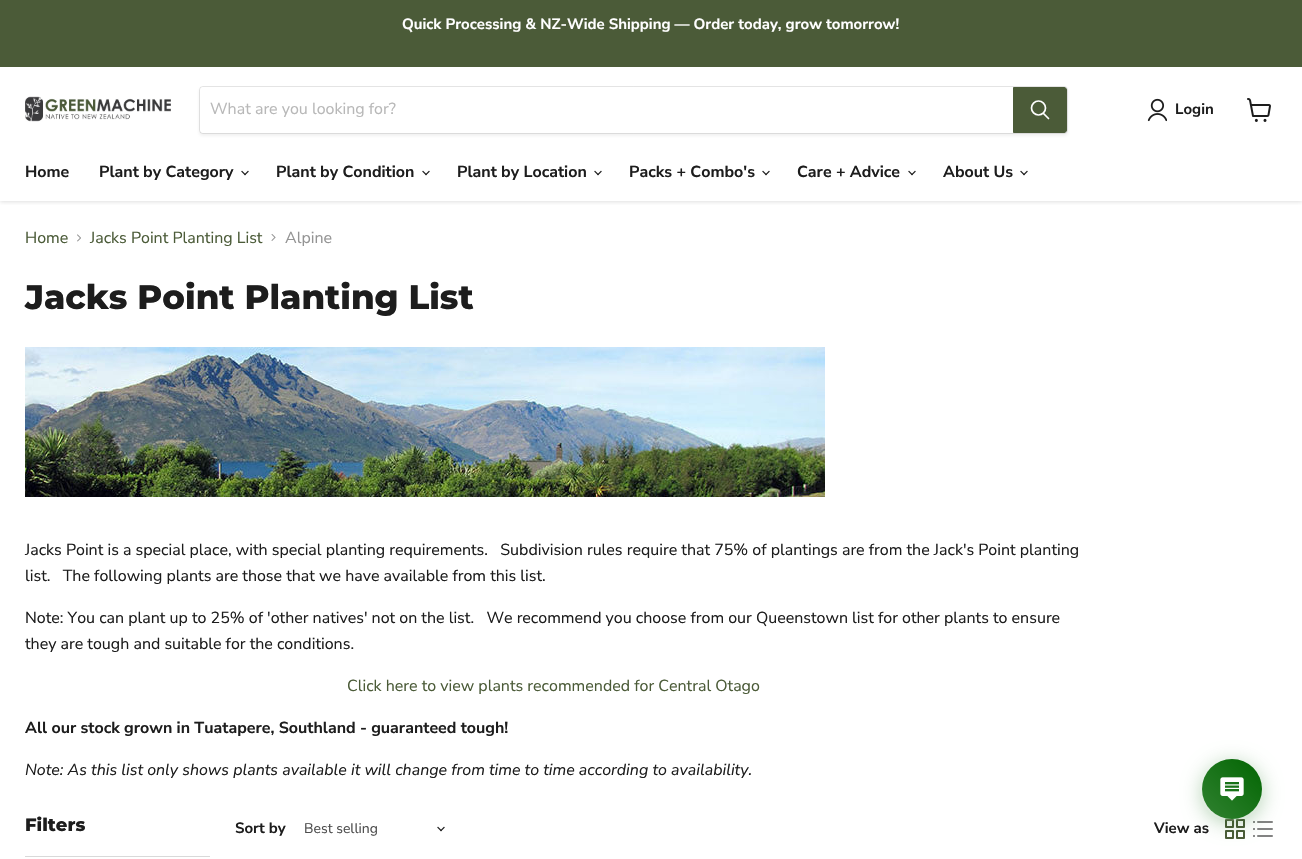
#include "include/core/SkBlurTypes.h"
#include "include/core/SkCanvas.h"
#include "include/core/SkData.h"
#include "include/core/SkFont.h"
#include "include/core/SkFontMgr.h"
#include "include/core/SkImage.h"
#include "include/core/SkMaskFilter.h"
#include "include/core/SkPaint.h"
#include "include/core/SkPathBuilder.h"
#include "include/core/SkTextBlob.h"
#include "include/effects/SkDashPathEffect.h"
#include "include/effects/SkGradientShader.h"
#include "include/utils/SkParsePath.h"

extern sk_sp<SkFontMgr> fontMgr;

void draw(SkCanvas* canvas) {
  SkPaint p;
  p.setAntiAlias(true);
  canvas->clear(SK_ColorWHITE);
  canvas->save();
  canvas->clipRect(SkRect::MakeLTRB(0, 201, 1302, 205));
  p.setColor(SkColorSetARGB(64, 128, 128, 128));
  p.setMaskFilter(SkMaskFilter::MakeBlur(kNormal_SkBlurStyle, 2));
  canvas->drawRect(SkRect::MakeLTRB(0, 68, 1302, 202), p);
  p.setMaskFilter(nullptr);
  canvas->restore();
  p.setColor(SkColorSetRGB(75, 91, 56));
  canvas->drawRect(SkRect::MakeLTRB(0, 0, 1302, 67), p);
  canvas->drawImageRect(SkImages::DeferredFromEncodedData(SkData::MakeFromFileName("images/1.png")), SkRect::MakeLTRB(25, 96, 171, 122), SkSamplingOptions());
  p.setColor(SkColorSetARGB(28, 128, 128, 128));
  p.setMaskFilter(SkMaskFilter::MakeBlur(kNormal_SkBlurStyle, 1.5f));
  canvas->drawRoundRect(SkRect::MakeLTRB(199, 88, 1068, 136), 4, 4, p);
  p.setMaskFilter(nullptr);
  p.setStyle(SkPaint::kStroke_Style);
  p.setStrokeWidth(1);
  p.setColor(SkColorSetARGB(51, 128, 128, 128));
  canvas->drawRoundRect(SkRect::MakeLTRB(199.5f, 86.5f, 1067.5f, 133.5f), 3.5f, 3.5f, p);
  p.setStyle(SkPaint::kFill_Style);
  p.setColor(SK_ColorWHITE);
  canvas->drawPath(SkPathBuilder().moveTo(203, 87).lineTo(1013, 87).lineTo(1013, 133).lineTo(203, 133).cubicTo(201.5f, 133, 200, 131.5f, 200, 130).lineTo(200, 90).cubicTo(200, 88.5f, 201.5f, 87, 203, 87).close().detach(), p);
  p.setColor(SkColorSetRGB(75, 91, 56));
  canvas->drawPath(SkPathBuilder().moveTo(1013.5f, 87.5f).lineTo(1064, 87.5f).cubicTo(1065.5f, 87.5f, 1066.5f, 88.5f, 1066.5f, 90).lineTo(1066.5f, 130).cubicTo(1066.5f, 131.5f, 1065.5f, 132.5f, 1064, 132.5f).lineTo(1013.5f, 132.5f).close().detach(), p);
  p.setStyle(SkPaint::kStroke_Style);
  canvas->drawPath(SkPathBuilder().moveTo(1013.5f, 87.5f).lineTo(1064, 87.5f).cubicTo(1065.5f, 87.5f, 1066.5f, 88.5f, 1066.5f, 90).lineTo(1066.5f, 130).cubicTo(1066.5f, 131.5f, 1065.5f, 132.5f, 1064, 132.5f).lineTo(1013.5f, 132.5f).close().detach(), p);
  p.setStrokeWidth(1.7f);
  p.setStrokeCap(SkPaint::kRound_Cap);
  p.setColor(SK_ColorWHITE);
  canvas->drawPath(SkPathBuilder().moveTo(1048.5f, 118.5f).lineTo(1043.5f, 113.5f).detach(), p);
  p.setStrokeCap(SkPaint::kButt_Cap);
  canvas->drawCircle(1038.5f, 108, 7, p);
  canvas->drawImageRect(SkImages::DeferredFromEncodedData(SkData::MakeFromFileName("images/2.png")), SkRect::MakeLTRB(1147, 98, 1167, 122), SkSamplingOptions());
  canvas->drawImageRect(SkImages::DeferredFromEncodedData(SkData::MakeFromFileName("images/3.png")), SkRect::MakeLTRB(1247, 98, 1271, 122), SkSamplingOptions());
  canvas->drawImageRect(SkImages::DeferredFromEncodedData(SkData::MakeFromFileName("images/4.png")), SkRect::MakeLTRB(241, 170, 249, 176), SkSamplingOptions());
  canvas->drawImageRect(SkImages::DeferredFromEncodedData(SkData::MakeFromFileName("images/4.png")), SkRect::MakeLTRB(422, 170, 430, 176), SkSamplingOptions());
  canvas->drawImageRect(SkImages::DeferredFromEncodedData(SkData::MakeFromFileName("images/4.png")), SkRect::MakeLTRB(594, 170, 602, 176), SkSamplingOptions());
  canvas->drawImageRect(SkImages::DeferredFromEncodedData(SkData::MakeFromFileName("images/4.png")), SkRect::MakeLTRB(762, 170, 770, 176), SkSamplingOptions());
  canvas->drawImageRect(SkImages::DeferredFromEncodedData(SkData::MakeFromFileName("images/4.png")), SkRect::MakeLTRB(908, 170, 916, 176), SkSamplingOptions());
  canvas->drawImageRect(SkImages::DeferredFromEncodedData(SkData::MakeFromFileName("images/4.png")), SkRect::MakeLTRB(1020, 170, 1028, 176), SkSamplingOptions());
  canvas->drawImageRect(SkImages::DeferredFromEncodedData(SkData::MakeFromFileName("images/5.png")), SkRect::MakeLTRB(77, 234, 81, 242), SkSamplingOptions());
  canvas->drawImageRect(SkImages::DeferredFromEncodedData(SkData::MakeFromFileName("images/6.png")), SkRect::MakeLTRB(271, 234, 276, 241), SkSamplingOptions());
  canvas->drawImageRect(SkImages::DeferredFromEncodedData(SkData::MakeFromFileName("images/7.png")), SkRect::MakeLTRB(25, 347, 825, 497), SkSamplingOptions());
  p.setStyle(SkPaint::kFill_Style);
  p.setColor(SkColorSetRGB(217, 217, 217));
  canvas->drawRect(SkRect::MakeLTRB(25, 856, 210, 857), p);
  canvas->drawImageRect(SkImages::DeferredFromEncodedData(SkData::MakeFromFileName("images/4.png")), SkRect::MakeLTRB(437, 826, 445, 832), SkSamplingOptions());
  canvas->drawImageRect(SkImages::DeferredFromEncodedData(SkData::MakeFromFileName("images/8.png")), SkRect::MakeLTRB(1225, 819, 1245, 839), SkSamplingOptions());
  canvas->drawImageRect(SkImages::DeferredFromEncodedData(SkData::MakeFromFileName("images/9.png")), SkRect::MakeLTRB(1253, 821, 1273, 837), SkSamplingOptions());
  p.setColor(SkColorSetARGB(77, 0, 100, 0));
  p.setMaskFilter(SkMaskFilter::MakeBlur(kNormal_SkBlurStyle, 10));
  canvas->drawRoundRect(SkRect::MakeLTRB(1202, 763, 1262, 823), 30, 30, p);
  p.setMaskFilter(nullptr);
  p.setColor(SkColorSetRGB(0, 100, 0));
  canvas->drawCircle(1232, 789, 30, p);
  {
    const SkColor colors[] = {SkColorSetARGB(51, 255, 255, 255), SkColorSetARGB(0, 255, 255, 255)};
    const float stops[] = {0, 1};
    const SkPoint ends[] = {{1200, 821}, {1264, 757}};
    p.setShader(SkGradientShader::MakeLinear(ends, colors, stops, 2, SkTileMode::kClamp));
    p.setAlpha(255);
  }
  canvas->drawCircle(1232, 789, 32, p);
  canvas->drawImageRect(SkImages::DeferredFromEncodedData(SkData::MakeFromFileName("images/10.png")), SkRect::MakeLTRB(1220, 777, 1244, 801), SkSamplingOptions());
  SkFont font1(fontMgr->matchFamilyStyle("Nunito Sans", SkFontStyle::Bold()), 15);
  font1.setSubpixel(true);
  p.setShader(nullptr);
  p.setColor(SK_ColorWHITE);
  canvas->drawString("Quick Processing & NZ-Wide Shipping — Order today, grow tomorrow!", 402, 29, font1, p);
  SkFont font2(fontMgr->matchFamilyStyle("Nunito Sans", SkFontStyle::Normal()), 16);
  font2.setSubpixel(true);
  p.setColor(SkColorSetRGB(184, 184, 184));
  canvas->drawString("What are you looking for?", 210, 114, font2, p);
  p.setColor(SkColorSetRGB(29, 29, 29));
  canvas->drawString("Login", 1175, 114, font1, p);
  SkFont font3(fontMgr->matchFamilyStyle("Nunito Sans", SkFontStyle::Bold()), 16);
  font3.setSubpixel(true);
  canvas->drawString("Home", 25, 177, font3, p);
  canvas->drawString("Plant by Category", 99, 177, font3, p);
  canvas->drawString("Plant by Condition", 276, 177, font3, p);
  canvas->drawString("Plant by Location", 457, 177, font3, p);
  canvas->drawString("Packs + Combo's", 629, 177, font3, p);
  canvas->drawString("Care + Advice", 797, 177, font3, p);
  canvas->drawString("About Us", 943, 177, font3, p);
  p.setColor(SkColorSetRGB(75, 91, 56));
  canvas->drawString("Home", 25, 243, font2, p);
  canvas->drawString("Jacks Point Planting List", 90, 243, font2, p);
  p.setColor(SkColorSetRGB(148, 148, 148));
  canvas->drawString("Alpine", 285, 243, font2, p);
  SkFont font4(fontMgr->matchFamilyStyle("Montserrat", SkFontStyle(800, SkFontStyle::kNormal_Width, SkFontStyle::kUpright_Slant)), 34);
  font4.setSubpixel(true);
  p.setColor(SkColorSetRGB(29, 29, 29));
  canvas->drawString("Jacks Point Planting List", 25, 309, font4, p);
  canvas->drawString("Jacks Point is a special place, with special planting requirements.   Subdivision rules require that 75% of plantings are from the Jack's Point planting", 25, 555, font2, p);
  canvas->drawString("list.   The following plants are those that we have available from this list.", 25, 581, font2, p);
  canvas->drawString("Note: You can plant up to 25% of 'other natives' not on the list.   We recommend you choose from our Queenstown list for other plants to ensure", 25, 623, font2, p);
  canvas->drawString("they are tough and suitable for the conditions.", 25, 649, font2, p);
  p.setColor(SkColorSetRGB(75, 91, 56));
  canvas->drawString("Click here to view plants recommended for Central Otago", 347, 691, font2, p);
  p.setColor(SkColorSetRGB(29, 29, 29));
  canvas->drawString("All our stock grown in Tuatapere, Southland - guaranteed tough!", 25, 733, font3, p);
  SkFont font5(fontMgr->matchFamilyStyle("Nunito Sans", SkFontStyle::Italic()), 16);
  font5.setSubpixel(true);
  canvas->drawString("Note: As this list only shows plants available it will change from time to time according to availability.", 25, 775, font5, p);
  SkFont font6(fontMgr->matchFamilyStyle("Montserrat", SkFontStyle(800, SkFontStyle::kNormal_Width, SkFontStyle::kUpright_Slant)), 18);
  font6.setSubpixel(true);
  canvas->drawString("Filters", 25, 831, font6, p);
  canvas->drawString("Sort by", 235, 833, font1, p);
  SkFont font7(fontMgr->matchFamilyStyle("Nunito Sans", SkFontStyle::Normal()), 14);
  font7.setSubpixel(true);
  p.setColor(SkColorSetRGB(77, 77, 77));
  canvas->drawString("Best selling", 304, 833, font7, p);
  p.setColor(SkColorSetRGB(29, 29, 29));
  canvas->drawString("View as", 1154, 833, font1, p);
}
